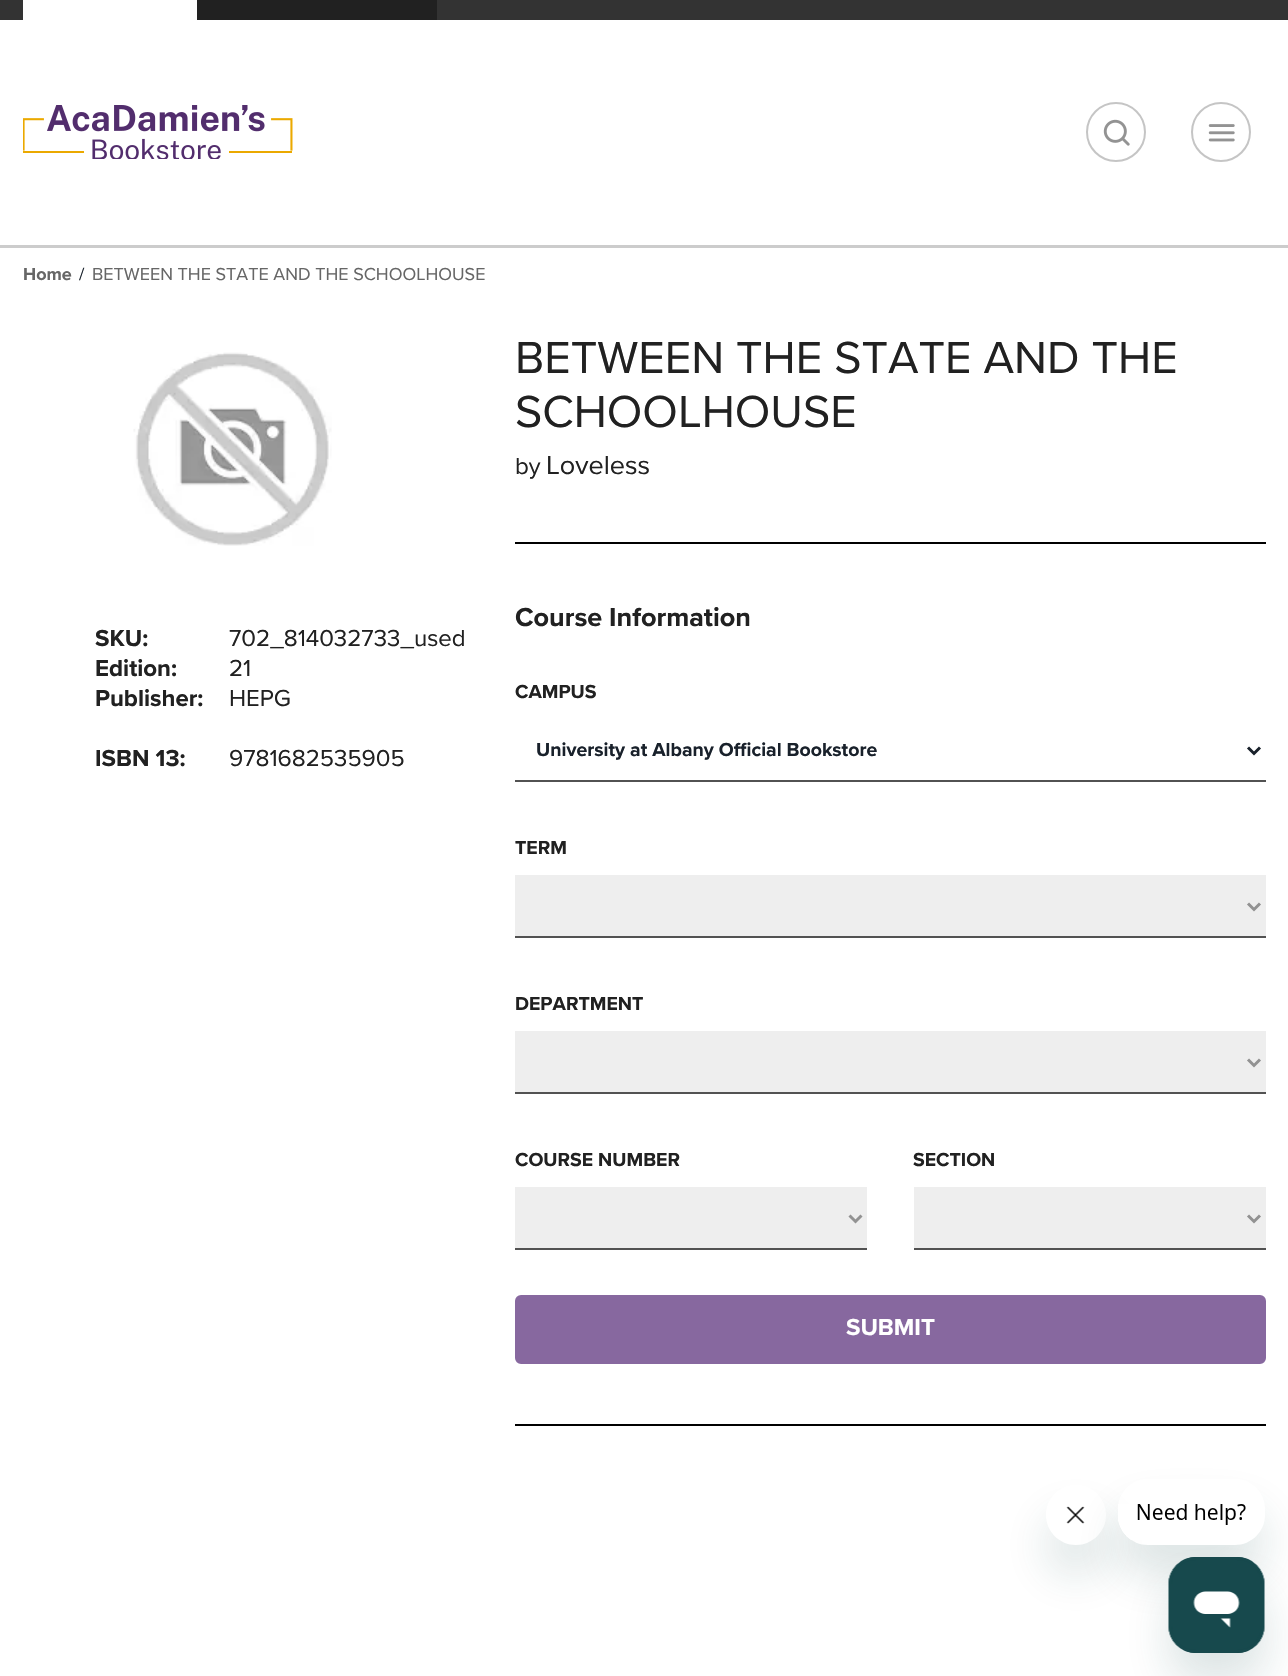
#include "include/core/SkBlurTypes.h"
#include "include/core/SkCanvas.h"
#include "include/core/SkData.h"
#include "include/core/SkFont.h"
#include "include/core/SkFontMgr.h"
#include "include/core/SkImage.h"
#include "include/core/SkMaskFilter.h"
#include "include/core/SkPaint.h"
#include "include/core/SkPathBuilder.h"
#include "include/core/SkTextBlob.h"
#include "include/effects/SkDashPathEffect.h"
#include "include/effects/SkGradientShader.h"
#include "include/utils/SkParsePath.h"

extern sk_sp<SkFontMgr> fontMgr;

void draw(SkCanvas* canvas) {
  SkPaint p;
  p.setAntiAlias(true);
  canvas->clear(SK_ColorWHITE);
  p.setColor(SkColorSetRGB(51, 51, 51));
  canvas->drawRect(SkRect::MakeLTRB(0, 0, 1288, 20), p);
  p.setColor(SkColorSetRGB(33, 33, 33));
  canvas->drawRect(SkRect::MakeLTRB(197, 0, 437, 20), p);
  p.setColor(SK_ColorWHITE);
  canvas->drawRect(SkRect::MakeLTRB(23, 0, 197, 20), p);
  p.setColor(SkColorSetRGB(204, 204, 204));
  canvas->drawRect(SkRect::MakeLTRB(0, 245, 1288, 248), p);
  canvas->drawImageRect(SkImages::DeferredFromEncodedData(SkData::MakeFromFileName("images/1.png")), SkRect::MakeLTRB(23, 105, 293, 159), SkSamplingOptions());
  p.setStyle(SkPaint::kStroke_Style);
  p.setStrokeWidth(2);
  p.setColor(SkColorSetRGB(197, 197, 197));
  canvas->drawCircle(1116, 132, 29, p);
  canvas->drawImageRect(SkImages::DeferredFromEncodedData(SkData::MakeFromFileName("images/2.png")), SkRect::MakeLTRB(1103, 119, 1130, 146), SkSamplingOptions());
  canvas->drawCircle(1221, 132, 29, p);
  canvas->drawImageRect(SkImages::DeferredFromEncodedData(SkData::MakeFromFileName("images/3.png")), SkRect::MakeLTRB(1208, 124, 1235, 142), SkSamplingOptions());
  canvas->drawImageRect(SkImages::DeferredFromEncodedData(SkData::MakeFromFileName("images/4.png")), SkRect::MakeLTRB(133, 352, 332, 546), SkSamplingOptions());
  p.setStyle(SkPaint::kFill_Style);
  p.setColor(SK_ColorBLACK);
  canvas->drawRect(SkRect::MakeLTRB(515, 542, 1266, 544), p);
  p.setColor(SkColorSetRGB(82, 82, 82));
  canvas->drawRect(SkRect::MakeLTRB(515, 780, 1266, 782), p);
  p.setStyle(SkPaint::kStroke_Style);
  p.setStrokeWidth(3);
  p.setColor(SkColorSetRGB(25, 33, 43));
  canvas->drawPath(SkPathBuilder().moveTo(1248, 747.5f).lineTo(1254, 753.5f).lineTo(1260, 747.5f).detach(), p);
  p.setStyle(SkPaint::kFill_Style);
  p.setColor(SkColorSetRGB(238, 238, 238));
  canvas->drawRect(SkRect::MakeLTRB(515, 875, 1266, 936), p);
  p.setColor(SkColorSetRGB(82, 82, 82));
  canvas->drawRect(SkRect::MakeLTRB(515, 936, 1266, 938), p);
  p.setStyle(SkPaint::kStroke_Style);
  p.setColor(SkColorSetRGB(146, 146, 146));
  canvas->drawPath(SkPathBuilder().moveTo(1248, 903.5f).lineTo(1254, 909.5f).lineTo(1260, 903.5f).detach(), p);
  p.setStyle(SkPaint::kFill_Style);
  p.setColor(SkColorSetRGB(238, 238, 238));
  canvas->drawRect(SkRect::MakeLTRB(515, 1031, 1266, 1092), p);
  p.setColor(SkColorSetRGB(82, 82, 82));
  canvas->drawRect(SkRect::MakeLTRB(515, 1092, 1266, 1094), p);
  p.setStyle(SkPaint::kStroke_Style);
  p.setColor(SkColorSetRGB(146, 146, 146));
  canvas->drawPath(SkPathBuilder().moveTo(1248, 1059.5f).lineTo(1254, 1065.5f).lineTo(1260, 1059.5f).detach(), p);
  p.setStyle(SkPaint::kFill_Style);
  p.setColor(SkColorSetRGB(238, 238, 238));
  canvas->drawRect(SkRect::MakeLTRB(515, 1187, 867, 1248), p);
  p.setColor(SkColorSetRGB(82, 82, 82));
  canvas->drawRect(SkRect::MakeLTRB(515, 1248, 867, 1250), p);
  p.setStyle(SkPaint::kStroke_Style);
  p.setColor(SkColorSetRGB(146, 146, 146));
  canvas->drawPath(SkPathBuilder().moveTo(849.5f, 1215.5f).lineTo(855.5f, 1221.5f).lineTo(861.5f, 1215.5f).detach(), p);
  p.setStyle(SkPaint::kFill_Style);
  p.setColor(SkColorSetRGB(238, 238, 238));
  canvas->drawRect(SkRect::MakeLTRB(914, 1187, 1266, 1248), p);
  p.setColor(SkColorSetRGB(82, 82, 82));
  canvas->drawRect(SkRect::MakeLTRB(914, 1248, 1266, 1250), p);
  p.setStyle(SkPaint::kStroke_Style);
  p.setColor(SkColorSetRGB(146, 146, 146));
  canvas->drawPath(SkPathBuilder().moveTo(1248, 1215.5f).lineTo(1254, 1221.5f).lineTo(1260, 1215.5f).detach(), p);
  p.setStyle(SkPaint::kFill_Style);
  p.setColor(SkColorSetRGB(135, 104, 159));
  canvas->drawRoundRect(SkRect::MakeLTRB(516.5f, 1296.5f, 1264.5f, 1362.5f), 4.5f, 4.5f, p);
  p.setStyle(SkPaint::kStroke_Style);
  canvas->drawRoundRect(SkRect::MakeLTRB(516.5f, 1296.5f, 1264.5f, 1362.5f), 4.5f, 4.5f, p);
  p.setStyle(SkPaint::kFill_Style);
  p.setColor(SK_ColorBLACK);
  canvas->drawRect(SkRect::MakeLTRB(515, 1424, 1266, 1426), p);
  canvas->save();
  canvas->clipPath(SkPathBuilder(SkPathFillType::kEvenOdd).moveTo(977, 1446).lineTo(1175, 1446).lineTo(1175, 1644).lineTo(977, 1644).close().moveTo(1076, 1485).cubicTo(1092.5f, 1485, 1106, 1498.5f, 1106, 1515).cubicTo(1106, 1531.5f, 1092.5f, 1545, 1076, 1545).cubicTo(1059.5f, 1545, 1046, 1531.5f, 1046, 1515).cubicTo(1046, 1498.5f, 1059.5f, 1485, 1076, 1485).close().detach(), true);
  p.setColor(SkColorSetARGB(38, 23, 73, 77));
  p.setMaskFilter(SkMaskFilter::MakeBlur(kNormal_SkBlurStyle, 22.5f));
  canvas->drawRoundRect(SkRect::MakeLTRB(1046, 1515, 1106, 1575), 30, 30, p);
  p.setMaskFilter(nullptr);
  canvas->restore();
  canvas->drawImageRect(SkImages::DeferredFromEncodedData(SkData::MakeFromFileName("images/6.png")), SkRect::MakeLTRB(1066, 1506, 1085, 1524), SkSamplingOptions());
  canvas->save();
  canvas->clipPath(SkPathBuilder(SkPathFillType::kEvenOdd).moveTo(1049, 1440).lineTo(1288, 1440).lineTo(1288, 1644).lineTo(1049, 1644).close().moveTo(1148, 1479).lineTo(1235, 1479).cubicTo(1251.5f, 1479, 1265, 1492.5f, 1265, 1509).lineTo(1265, 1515).cubicTo(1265, 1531.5f, 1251.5f, 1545, 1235, 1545).lineTo(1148, 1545).cubicTo(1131.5f, 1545, 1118, 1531.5f, 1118, 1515).lineTo(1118, 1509).cubicTo(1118, 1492.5f, 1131.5f, 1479, 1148, 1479).close().detach(), true);
  p.setMaskFilter(SkMaskFilter::MakeBlur(kNormal_SkBlurStyle, 22.5f));
  canvas->drawRoundRect(SkRect::MakeLTRB(1118, 1509, 1265, 1575), 30, 30, p);
  p.setMaskFilter(nullptr);
  canvas->restore();
  canvas->drawImageRect(SkImages::DeferredFromEncodedData(SkData::MakeFromFileName("images/5.png")), SkRect::MakeLTRB(1118, 1504, 1246, 1540), SkSamplingOptions());
  p.setMaskFilter(SkMaskFilter::MakeBlur(kNormal_SkBlurStyle, 22.5f));
  canvas->drawRoundRect(SkRect::MakeLTRB(1169, 1587, 1265, 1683), 27, 27, p);
  p.setMaskFilter(nullptr);
  canvas->drawImageRect(SkImages::DeferredFromEncodedData(SkData::MakeFromFileName("images/7.png")), SkRect::MakeLTRB(1168, 1557, 1265, 1653), SkSamplingOptions());
  SkFont font1(fontMgr->matchFamilyStyle("Proxima Nova", SkFontStyle::Bold()), 18);
  font1.setSubpixel(true);
  p.setColor(SkColorSetRGB(102, 102, 102));
  canvas->drawString("Home", 23, 280, font1, p);
  SkFont font2(fontMgr->matchFamilyStyle("Proxima Nova", SkFontStyle::Normal()), 18);
  font2.setSubpixel(true);
  p.setColor(SkColorSetRGB(25, 33, 43));
  canvas->drawString("/", 79, 280, font2, p);
  p.setColor(SkColorSetRGB(102, 102, 102));
  canvas->drawString("BETWEEN THE STATE AND THE SCHOOLHOUSE", 92, 280, font2, p);
  SkFont font3(fontMgr->matchFamilyStyle("Proxima Nova", SkFontStyle::Bold()), 24);
  font3.setSubpixel(true);
  p.setColor(SkColorSetRGB(33, 33, 33));
  canvas->drawString("SKU:", 95, 646, font3, p);
  SkFont font4(fontMgr->matchFamilyStyle("Proxima Nova", SkFontStyle::Normal()), 24);
  font4.setSubpixel(true);
  canvas->drawString("702_814032733_used", 229, 646, font4, p);
  canvas->drawString("Edition:", 95, 676, font3, p);
  canvas->drawString("21", 229, 676, font4, p);
  canvas->drawString("Publisher:", 95, 706, font3, p);
  canvas->drawString("HEPG", 229, 706, font4, p);
  canvas->drawString("ISBN 13:", 95, 766, font3, p);
  canvas->drawString("9781682535905", 229, 766, font4, p);
  SkFont font5(fontMgr->matchFamilyStyle("Proxima Nova", SkFontStyle::Normal()), 46.5f);
  font5.setSubpixel(true);
  canvas->drawString("BETWEEN THE STATE AND THE", 515, 373, font5, p);
  canvas->drawString("SCHOOLHOUSE", 515, 427, font5, p);
  canvas->drawString("by", 515, 474, font4, p);
  SkFont font6(fontMgr->matchFamilyStyle("Proxima Nova", SkFontStyle::Normal()), 27);
  font6.setSubpixel(true);
  canvas->drawString("Loveless", 546, 474, font6, p);
  SkFont font7(fontMgr->matchFamilyStyle("Proxima Nova", SkFontStyle::Bold()), 27);
  font7.setSubpixel(true);
  canvas->drawString("Course Information", 515, 626, font7, p);
  SkFont font8(fontMgr->matchFamilyStyle("Proxima Nova", SkFontStyle::Bold()), 19.5f);
  font8.setSubpixel(true);
  canvas->drawString("CAMPUS", 515, 698, font8, p);
  p.setColor(SkColorSetRGB(25, 33, 43));
  canvas->drawString("University at Albany Official Bookstore", 536, 756, font8, p);
  p.setColor(SkColorSetRGB(33, 33, 33));
  canvas->drawString("TERM", 515, 854, font8, p);
  canvas->drawString("DEPARTMENT", 515, 1010, font8, p);
  canvas->drawString("COURSE NUMBER", 515, 1166, font8, p);
  canvas->drawString("SECTION", 913, 1166, font8, p);
  p.setColor(SK_ColorWHITE);
  canvas->drawString("SUBMIT", 846, 1335, font3, p);
}
